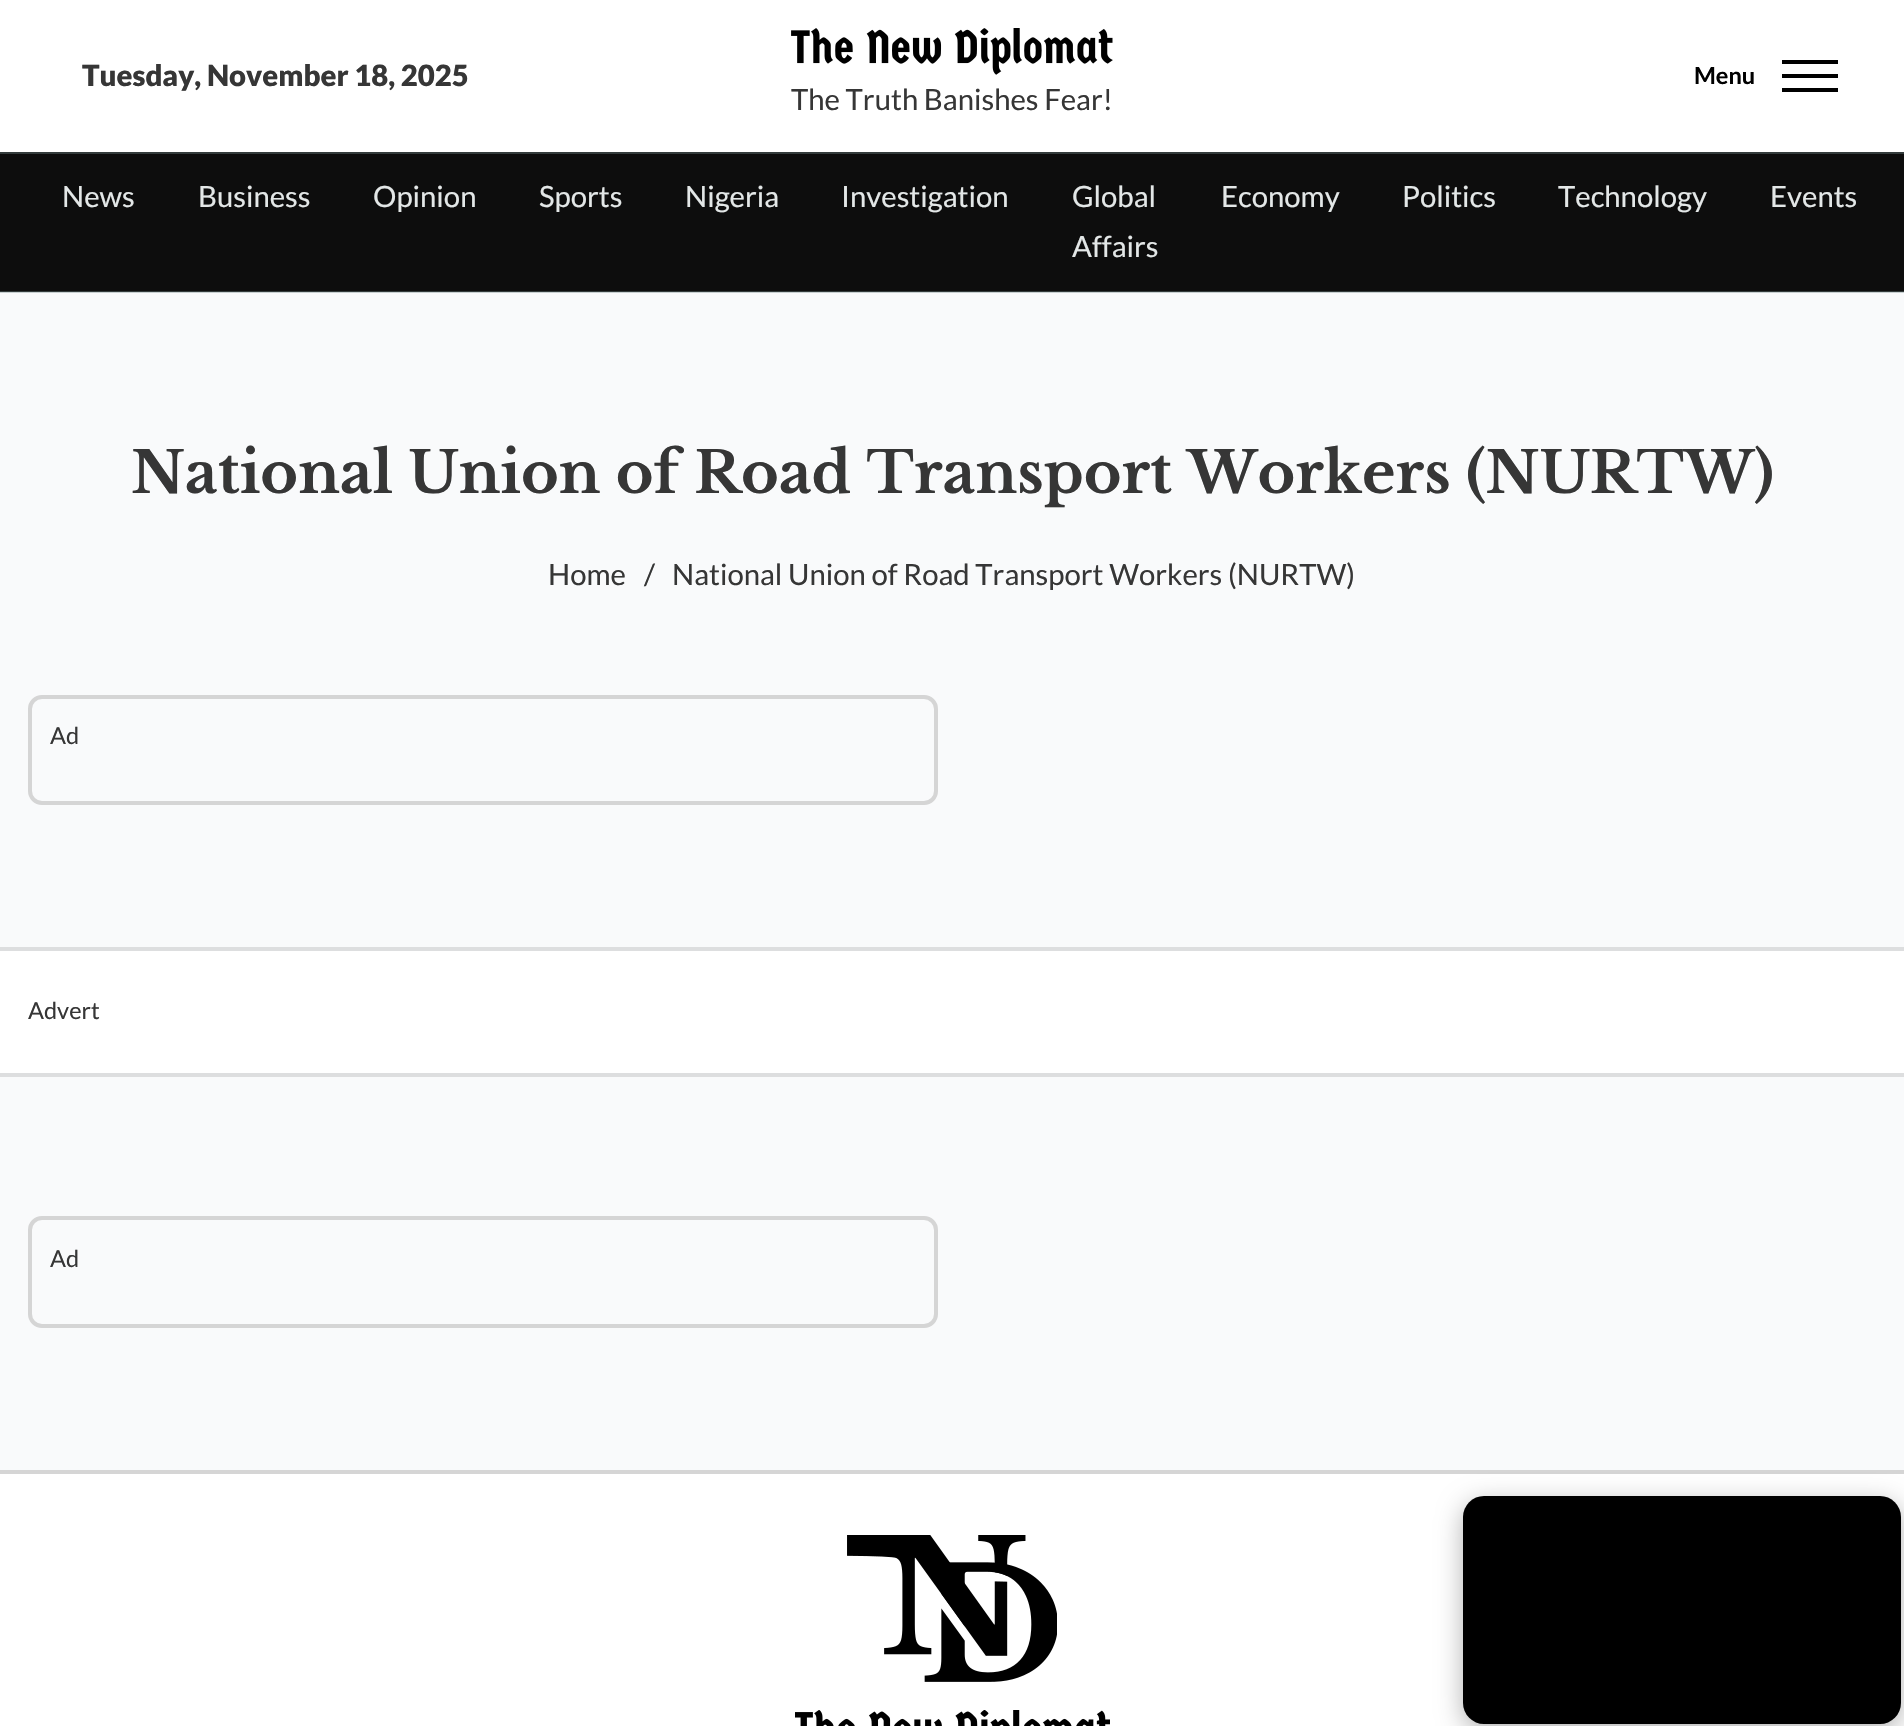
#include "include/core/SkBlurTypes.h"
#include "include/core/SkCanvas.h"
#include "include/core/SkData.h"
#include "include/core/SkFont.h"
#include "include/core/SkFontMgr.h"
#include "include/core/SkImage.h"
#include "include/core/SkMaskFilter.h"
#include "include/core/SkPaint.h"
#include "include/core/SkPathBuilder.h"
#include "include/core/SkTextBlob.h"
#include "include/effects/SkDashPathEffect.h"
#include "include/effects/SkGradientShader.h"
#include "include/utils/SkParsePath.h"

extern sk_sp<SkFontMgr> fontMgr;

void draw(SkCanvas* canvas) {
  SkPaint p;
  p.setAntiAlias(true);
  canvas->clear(SkColorSetRGB(249, 250, 251));
  p.setColor(SkColorSetRGB(200, 208, 209));
  canvas->drawRect(SkRect::MakeLTRB(0, 292, 1904, 293), p);
  p.setColor(SK_ColorWHITE);
  canvas->drawRect(SkRect::MakeLTRB(0, 0, 1904, 152), p);
  p.setColor(SK_ColorBLACK);
  canvas->drawRect(SkRect::MakeLTRB(1782, 74, 1838, 78), p);
  canvas->drawRect(SkRect::MakeLTRB(1782, 60, 1838, 64), p);
  canvas->drawRect(SkRect::MakeLTRB(1782, 88, 1838, 92), p);
  canvas->drawImageRect(SkImages::DeferredFromEncodedData(SkData::MakeFromFileName("images/1.png")), SkRect::MakeLTRB(791, 28, 1113, 75), SkSamplingOptions());
  p.setColor(SkColorSetRGB(13, 13, 13));
  canvas->drawRect(SkRect::MakeLTRB(0, 154, 1904, 291), p);
  p.setColor(SkColorSetRGB(51, 59, 59));
  canvas->drawRect(SkRect::MakeLTRB(0, 291, 1904, 292), p);
  canvas->drawRect(SkRect::MakeLTRB(0, 152, 1904, 154), p);
  p.setStyle(SkPaint::kStroke_Style);
  p.setStrokeWidth(4);
  p.setColor(SkColorSetRGB(213, 213, 213));
  canvas->drawRoundRect(SkRect::MakeLTRB(30, 697, 936, 803), 12, 12, p);
  p.setStyle(SkPaint::kFill_Style);
  p.setColor(SK_ColorWHITE);
  canvas->drawRect(SkRect::MakeLTRB(0, 951, 1904, 1073), p);
  p.setColor(SkColorSetRGB(221, 222, 223));
  canvas->drawRect(SkRect::MakeLTRB(0, 947, 1904, 951), p);
  canvas->drawRect(SkRect::MakeLTRB(0, 1073, 1904, 1077), p);
  p.setStyle(SkPaint::kStroke_Style);
  p.setColor(SkColorSetRGB(213, 213, 213));
  canvas->drawRoundRect(SkRect::MakeLTRB(30, 1218, 936, 1326), 12, 12, p);
  p.setStyle(SkPaint::kFill_Style);
  p.setColor(SK_ColorWHITE);
  canvas->drawRect(SkRect::MakeLTRB(0, 1474, 1904, 1726), p);
  p.setColor(SkColorSetRGB(213, 213, 213));
  canvas->drawRect(SkRect::MakeLTRB(0, 1470, 1904, 1474), p);
  p.setColor(SkColorSetARGB(77, 0, 0, 0));
  p.setMaskFilter(SkMaskFilter::MakeBlur(kNormal_SkBlurStyle, 13));
  canvas->drawRoundRect(SkRect::MakeLTRB(1463, 1503, 1901, 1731), 21, 21, p);
  p.setMaskFilter(nullptr);
  p.setColor(SK_ColorBLACK);
  canvas->drawRoundRect(SkRect::MakeLTRB(1463, 1496, 1901, 1724), 21, 21, p);
  canvas->drawImageRect(SkImages::DeferredFromEncodedData(SkData::MakeFromFileName("images/2.png")), SkRect::MakeLTRB(847, 1535, 1057, 1682), SkSamplingOptions());
  canvas->drawImageRect(SkImages::DeferredFromEncodedData(SkData::MakeFromFileName("images/3.png")), SkRect::MakeLTRB(795, 1710, 1110, 1726), SkSamplingOptions());
  SkFont font1(fontMgr->matchFamilyStyle("Lato", SkFontStyle(900, SkFontStyle::kNormal_Width, SkFontStyle::kUpright_Slant)), 29.3f);
  font1.setSubpixel(true);
  p.setColor(SkColorSetRGB(54, 54, 54));
  canvas->drawString("Tuesday, November 18, 2025", 82, 86, font1, p);
  SkFont font2(fontMgr->matchFamilyStyle("Lato", SkFontStyle::Bold()), 23.5f);
  font2.setSubpixel(true);
  p.setColor(SK_ColorBLACK);
  canvas->drawString("Menu", 1694, 84, font2, p);
  SkFont font3(fontMgr->matchFamilyStyle("Lato", SkFontStyle::Normal()), 29.3f);
  font3.setSubpixel(true);
  p.setColor(SkColorSetRGB(54, 54, 54));
  canvas->drawString("The Truth Banishes Fear!", 791, 110, font3, p);
  p.setColor(SkColorSetRGB(227, 231, 231));
  canvas->drawString("News", 62, 207, font3, p);
  canvas->drawString("Business", 198, 207, font3, p);
  canvas->drawString("Opinion", 373, 207, font3, p);
  canvas->drawString("Sports", 539, 207, font3, p);
  canvas->drawString("Nigeria", 685, 207, font3, p);
  canvas->drawString("Investigation", 841, 207, font3, p);
  canvas->drawString("Global", 1072, 207, font3, p);
  canvas->drawString("Affairs", 1072, 257, font3, p);
  canvas->drawString("Economy", 1221, 207, font3, p);
  canvas->drawString("Politics", 1402, 207, font3, p);
  canvas->drawString("Technology", 1558, 207, font3, p);
  canvas->drawString("Events", 1770, 207, font3, p);
  SkFont font4(fontMgr->matchFamilyStyle("Libre Baskerville", SkFontStyle::Bold()), 57.3f);
  font4.setSubpixel(true);
  p.setColor(SkColorSetRGB(54, 54, 54));
  canvas->drawString("National Union of Road Transport Workers (NURTW)", 131, 493, font4, p);
  canvas->drawString("Home", 548, 585, font3, p);
  canvas->drawString("/", 644, 585, font3, p);
  canvas->drawString("National Union of Road Transport Workers (NURTW)", 672, 585, font3, p);
  SkFont font5(fontMgr->matchFamilyStyle("Lato", SkFontStyle::Normal()), 23.5f);
  font5.setSubpixel(true);
  canvas->drawString("Ad", 50, 744, font5, p);
  canvas->drawString("Advert", 28, 1019, font5, p);
  canvas->drawString("Ad", 50, 1267, font5, p);
}
